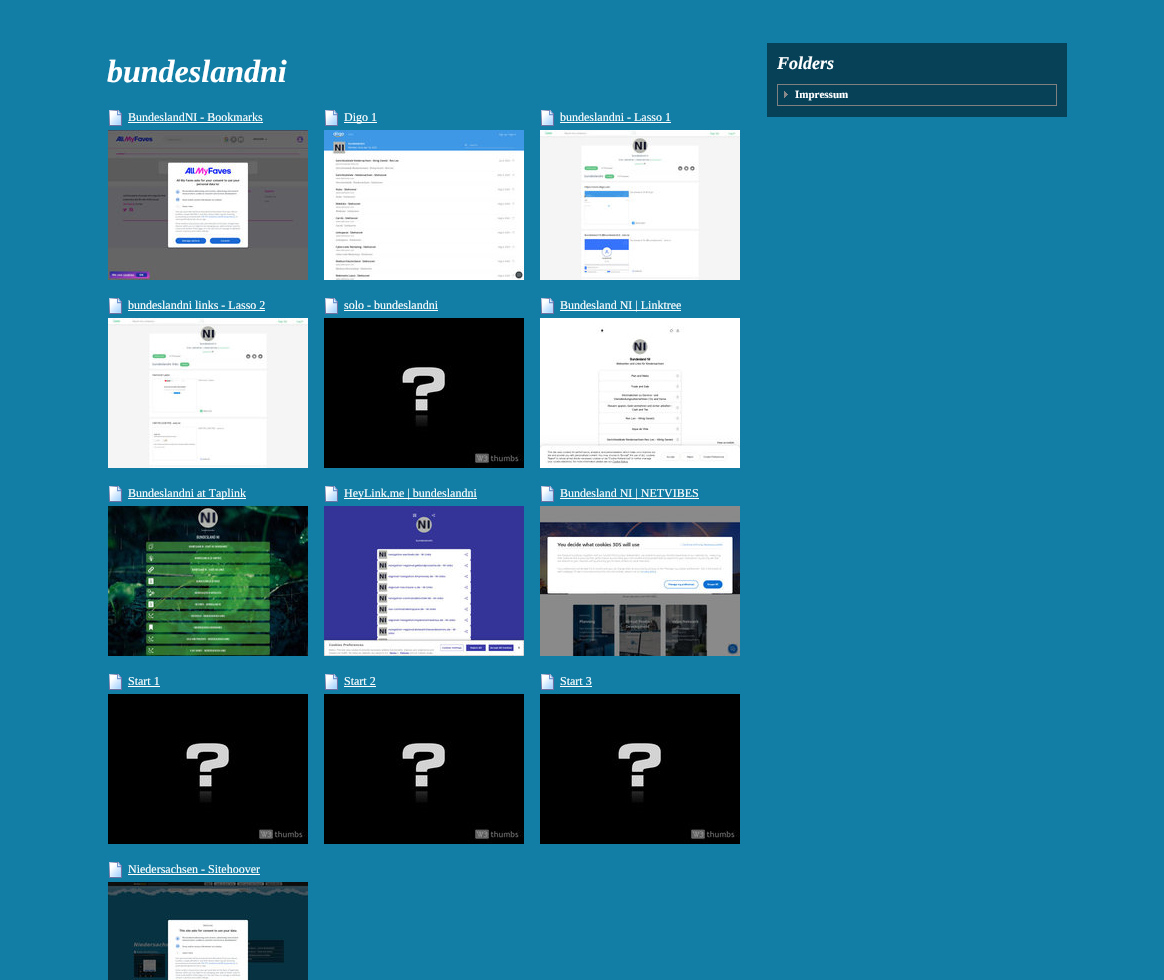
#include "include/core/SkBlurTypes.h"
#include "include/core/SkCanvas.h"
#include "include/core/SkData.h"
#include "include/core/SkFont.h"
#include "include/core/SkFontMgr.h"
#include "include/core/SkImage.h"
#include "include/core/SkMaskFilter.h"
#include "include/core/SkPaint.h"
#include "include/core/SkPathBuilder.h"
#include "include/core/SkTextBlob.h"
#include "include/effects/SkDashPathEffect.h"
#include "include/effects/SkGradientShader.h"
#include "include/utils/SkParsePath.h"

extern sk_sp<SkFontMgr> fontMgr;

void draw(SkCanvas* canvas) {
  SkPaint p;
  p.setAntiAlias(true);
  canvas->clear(SkColorSetRGB(18, 126, 166));
  canvas->drawImageRect(SkImages::DeferredFromEncodedData(SkData::MakeFromFileName("images/1.png")), SkRect::MakeLTRB(109, 110, 122, 126), SkSamplingOptions());
  p.setColor(SK_ColorWHITE);
  canvas->drawRect(SkRect::MakeLTRB(128, 122, 263, 123), p);
  canvas->drawImageRect(SkImages::DeferredFromEncodedData(SkData::MakeFromFileName("images/2.png")), SkRect::MakeLTRB(108, 130, 308, 280), SkSamplingOptions());
  canvas->drawImageRect(SkImages::DeferredFromEncodedData(SkData::MakeFromFileName("images/1.png")), SkRect::MakeLTRB(325, 110, 338, 126), SkSamplingOptions());
  canvas->drawRect(SkRect::MakeLTRB(344, 122, 377, 123), p);
  canvas->drawImageRect(SkImages::DeferredFromEncodedData(SkData::MakeFromFileName("images/3.png")), SkRect::MakeLTRB(324, 130, 524, 280), SkSamplingOptions());
  canvas->drawImageRect(SkImages::DeferredFromEncodedData(SkData::MakeFromFileName("images/1.png")), SkRect::MakeLTRB(541, 110, 554, 126), SkSamplingOptions());
  canvas->drawRect(SkRect::MakeLTRB(560, 122, 671, 123), p);
  canvas->drawImageRect(SkImages::DeferredFromEncodedData(SkData::MakeFromFileName("images/4.png")), SkRect::MakeLTRB(540, 130, 740, 280), SkSamplingOptions());
  canvas->drawImageRect(SkImages::DeferredFromEncodedData(SkData::MakeFromFileName("images/1.png")), SkRect::MakeLTRB(109, 298, 122, 314), SkSamplingOptions());
  canvas->drawRect(SkRect::MakeLTRB(128, 310, 265, 311), p);
  canvas->drawImageRect(SkImages::DeferredFromEncodedData(SkData::MakeFromFileName("images/5.png")), SkRect::MakeLTRB(108, 318, 308, 468), SkSamplingOptions());
  canvas->drawImageRect(SkImages::DeferredFromEncodedData(SkData::MakeFromFileName("images/1.png")), SkRect::MakeLTRB(325, 298, 338, 314), SkSamplingOptions());
  canvas->drawRect(SkRect::MakeLTRB(344, 310, 438, 311), p);
  canvas->drawImageRect(SkImages::DeferredFromEncodedData(SkData::MakeFromFileName("images/6.png")), SkRect::MakeLTRB(324, 318, 524, 468), SkSamplingOptions());
  canvas->drawImageRect(SkImages::DeferredFromEncodedData(SkData::MakeFromFileName("images/1.png")), SkRect::MakeLTRB(541, 298, 554, 314), SkSamplingOptions());
  canvas->drawRect(SkRect::MakeLTRB(560, 310, 681, 311), p);
  canvas->drawImageRect(SkImages::DeferredFromEncodedData(SkData::MakeFromFileName("images/7.png")), SkRect::MakeLTRB(540, 318, 740, 468), SkSamplingOptions());
  canvas->drawImageRect(SkImages::DeferredFromEncodedData(SkData::MakeFromFileName("images/1.png")), SkRect::MakeLTRB(109, 486, 122, 502), SkSamplingOptions());
  canvas->drawRect(SkRect::MakeLTRB(128, 498, 246, 499), p);
  canvas->drawImageRect(SkImages::DeferredFromEncodedData(SkData::MakeFromFileName("images/8.png")), SkRect::MakeLTRB(108, 506, 308, 656), SkSamplingOptions());
  canvas->drawImageRect(SkImages::DeferredFromEncodedData(SkData::MakeFromFileName("images/1.png")), SkRect::MakeLTRB(325, 486, 338, 502), SkSamplingOptions());
  canvas->drawRect(SkRect::MakeLTRB(344, 498, 477, 499), p);
  canvas->drawImageRect(SkImages::DeferredFromEncodedData(SkData::MakeFromFileName("images/9.png")), SkRect::MakeLTRB(324, 506, 524, 656), SkSamplingOptions());
  canvas->drawImageRect(SkImages::DeferredFromEncodedData(SkData::MakeFromFileName("images/1.png")), SkRect::MakeLTRB(541, 486, 554, 502), SkSamplingOptions());
  canvas->drawRect(SkRect::MakeLTRB(560, 498, 699, 499), p);
  canvas->drawImageRect(SkImages::DeferredFromEncodedData(SkData::MakeFromFileName("images/10.png")), SkRect::MakeLTRB(540, 506, 740, 656), SkSamplingOptions());
  canvas->drawImageRect(SkImages::DeferredFromEncodedData(SkData::MakeFromFileName("images/1.png")), SkRect::MakeLTRB(109, 674, 122, 690), SkSamplingOptions());
  canvas->drawRect(SkRect::MakeLTRB(128, 686, 160, 687), p);
  canvas->drawImageRect(SkImages::DeferredFromEncodedData(SkData::MakeFromFileName("images/6.png")), SkRect::MakeLTRB(108, 694, 308, 844), SkSamplingOptions());
  canvas->drawImageRect(SkImages::DeferredFromEncodedData(SkData::MakeFromFileName("images/1.png")), SkRect::MakeLTRB(325, 674, 338, 690), SkSamplingOptions());
  canvas->drawRect(SkRect::MakeLTRB(344, 686, 376, 687), p);
  canvas->drawImageRect(SkImages::DeferredFromEncodedData(SkData::MakeFromFileName("images/6.png")), SkRect::MakeLTRB(324, 694, 524, 844), SkSamplingOptions());
  canvas->drawImageRect(SkImages::DeferredFromEncodedData(SkData::MakeFromFileName("images/1.png")), SkRect::MakeLTRB(541, 674, 554, 690), SkSamplingOptions());
  canvas->drawRect(SkRect::MakeLTRB(560, 686, 592, 687), p);
  canvas->drawImageRect(SkImages::DeferredFromEncodedData(SkData::MakeFromFileName("images/6.png")), SkRect::MakeLTRB(540, 694, 740, 844), SkSamplingOptions());
  canvas->drawImageRect(SkImages::DeferredFromEncodedData(SkData::MakeFromFileName("images/1.png")), SkRect::MakeLTRB(109, 862, 122, 878), SkSamplingOptions());
  canvas->drawRect(SkRect::MakeLTRB(128, 874, 260, 875), p);
  canvas->drawImageRect(SkImages::DeferredFromEncodedData(SkData::MakeFromFileName("images/11.png")), SkRect::MakeLTRB(108, 882, 308, 980), SkSamplingOptions());
  p.setColor(SkColorSetRGB(6, 65, 87));
  canvas->drawRect(SkRect::MakeLTRB(767, 43, 1067, 117), p);
  p.setStyle(SkPaint::kStroke_Style);
  p.setStrokeWidth(1);
  p.setColor(SkColorSetRGB(128, 128, 128));
  canvas->drawRect(SkRect::MakeLTRB(777.5f, 84.5f, 1056.5f, 105.5f), p);
  canvas->drawImageRect(SkImages::DeferredFromEncodedData(SkData::MakeFromFileName("images/12.png")), SkRect::MakeLTRB(784, 91, 788, 98), SkSamplingOptions());
  SkFont font1(fontMgr->matchFamilyStyle("Liberation Serif", SkFontStyle::BoldItalic()), 32);
  font1.setSubpixel(true);
  p.setStyle(SkPaint::kFill_Style);
  p.setColor(SK_ColorWHITE);
  canvas->drawString("bundeslandni", 107, 82, font1, p);
  SkFont font2(fontMgr->matchFamilyStyle("Liberation Serif", SkFontStyle::Normal()), 12);
  font2.setSubpixel(true);
  canvas->drawString("BundeslandNI - Bookmarks", 128, 121, font2, p);
  canvas->drawString("Digo 1", 344, 121, font2, p);
  canvas->drawString("bundeslandni - Lasso 1", 560, 121, font2, p);
  canvas->drawString("bundeslandni links - Lasso 2", 128, 309, font2, p);
  canvas->drawString("solo - bundeslandni", 344, 309, font2, p);
  canvas->drawString("Bundesland NI | Linktree", 560, 309, font2, p);
  canvas->drawString("Bundeslandni at Taplink", 128, 497, font2, p);
  canvas->drawString("HeyLink.me | bundeslandni", 344, 497, font2, p);
  canvas->drawString("Bundesland NI | NETVIBES", 560, 497, font2, p);
  canvas->drawString("Start 1", 128, 685, font2, p);
  canvas->drawString("Start 2", 344, 685, font2, p);
  canvas->drawString("Start 3", 560, 685, font2, p);
  canvas->drawString("Niedersachsen - Sitehoover", 128, 873, font2, p);
  SkFont font3(fontMgr->matchFamilyStyle("Liberation Serif", SkFontStyle::BoldItalic()), 18);
  font3.setSubpixel(true);
  canvas->drawString("Folders", 777, 69, font3, p);
  SkFont font4(fontMgr->matchFamilyStyle("Liberation Serif", SkFontStyle::Bold()), 11);
  font4.setSubpixel(true);
  canvas->drawString("Impressum", 795, 98, font4, p);
}
